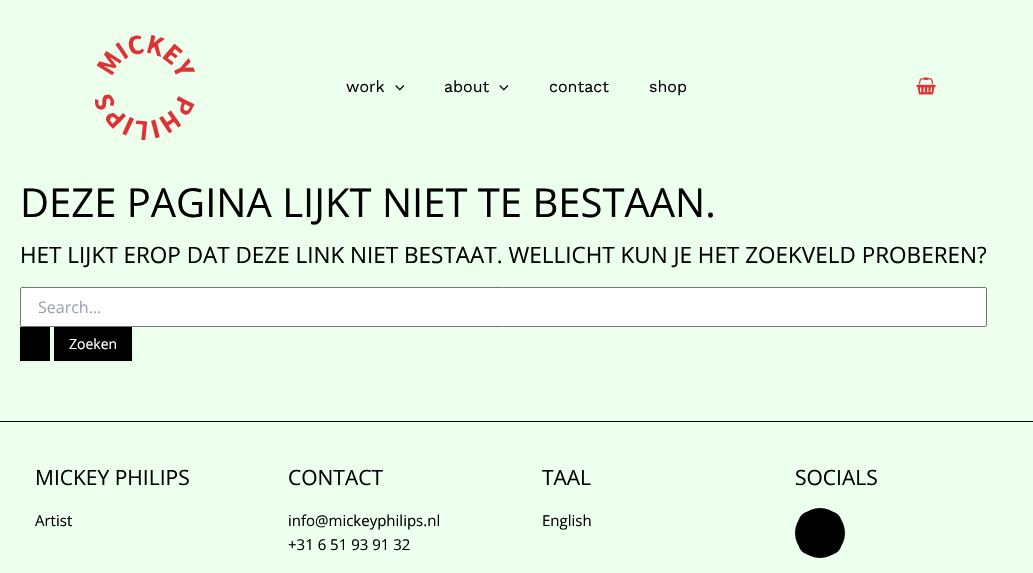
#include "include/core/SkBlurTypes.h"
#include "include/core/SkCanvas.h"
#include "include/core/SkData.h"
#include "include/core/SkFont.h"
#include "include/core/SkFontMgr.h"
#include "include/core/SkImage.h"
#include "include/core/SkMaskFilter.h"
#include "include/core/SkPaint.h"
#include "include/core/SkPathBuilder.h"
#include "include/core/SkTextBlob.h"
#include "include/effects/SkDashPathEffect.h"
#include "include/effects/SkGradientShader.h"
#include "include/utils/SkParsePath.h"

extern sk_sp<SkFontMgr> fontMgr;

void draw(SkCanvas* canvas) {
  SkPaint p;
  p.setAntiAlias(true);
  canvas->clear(SkColorSetRGB(237, 255, 237));
  canvas->drawImageRect(SkImages::DeferredFromEncodedData(SkData::MakeFromFileName("images/1.png")), SkRect::MakeLTRB(95, 35, 195, 140), SkSamplingOptions());
  canvas->drawImageRect(SkImages::DeferredFromEncodedData(SkData::MakeFromFileName("images/2.png")), SkRect::MakeLTRB(395, 85, 404, 91), SkSamplingOptions());
  canvas->drawImageRect(SkImages::DeferredFromEncodedData(SkData::MakeFromFileName("images/3.png")), SkRect::MakeLTRB(499, 85, 509, 91), SkSamplingOptions());
  canvas->drawImageRect(SkImages::DeferredFromEncodedData(SkData::MakeFromFileName("images/4.png")), SkRect::MakeLTRB(916, 77, 936, 95), SkSamplingOptions());
  p.setColor(SK_ColorWHITE);
  canvas->drawRoundRect(SkRect::MakeLTRB(20.5f, 287.5f, 986.5f, 326.5f), 1.5f, 1.5f, p);
  p.setStyle(SkPaint::kStroke_Style);
  p.setStrokeWidth(1);
  p.setColor(SkColorSetRGB(118, 118, 118));
  canvas->drawRoundRect(SkRect::MakeLTRB(20.5f, 287.5f, 986.5f, 326.5f), 1.5f, 1.5f, p);
  p.setStyle(SkPaint::kFill_Style);
  p.setColor(SkColorSetARGB(13, 0, 0, 0));
  p.setMaskFilter(SkMaskFilter::MakeBlur(kNormal_SkBlurStyle, 1));
  canvas->drawRect(SkRect::MakeLTRB(20, 328, 50, 362), p);
  p.setMaskFilter(nullptr);
  p.setColor(SK_ColorBLACK);
  canvas->drawRect(SkRect::MakeLTRB(20, 327, 50, 361), p);
  p.setColor(SkColorSetARGB(13, 0, 0, 0));
  p.setMaskFilter(SkMaskFilter::MakeBlur(kNormal_SkBlurStyle, 1));
  canvas->drawRect(SkRect::MakeLTRB(54, 328, 132, 362), p);
  p.setMaskFilter(nullptr);
  p.setColor(SK_ColorBLACK);
  canvas->drawRect(SkRect::MakeLTRB(54, 327, 132, 361), p);
  canvas->drawRect(SkRect::MakeLTRB(0, 421, 1033, 422), p);
  canvas->drawCircle(820, 533, 25, p);
  canvas->drawImageRect(SkImages::DeferredFromEncodedData(SkData::MakeFromFileName("images/5.png")), SkRect::MakeLTRB(798, 511, 842, 555), SkSamplingOptions());
  SkFont font1(fontMgr->matchFamilyStyle("Work Sans", SkFontStyle::Normal()), 16);
  font1.setSubpixel(true);
  canvas->drawString("work", 346, 92, font1, p);
  canvas->drawString("about", 444, 92, font1, p);
  canvas->drawString("contact", 549, 92, font1, p);
  canvas->drawString("shop", 649, 92, font1, p);
  SkFont font2(fontMgr->matchFamilyStyle("Open Sans", SkFontStyle::Normal()), 40);
  font2.setSubpixel(true);
  canvas->drawString("DEZE PAGINA LIJKT NIET TE BESTAAN.", 20, 217, font2, p);
  SkFont font3(fontMgr->matchFamilyStyle("Open Sans", SkFontStyle::Normal()), 22.5f);
  font3.setSubpixel(true);
  canvas->drawString("HET LIJKT EROP DAT DEZE LINK NIET BESTAAT. WELLICHT KUN JE HET ZOEKVELD PROBEREN?", 20, 263, font3, p);
  SkFont font4(fontMgr->matchFamilyStyle("Open Sans", SkFontStyle::Normal()), 16);
  font4.setSubpixel(true);
  p.setColor(SkColorSetRGB(156, 163, 175));
  canvas->drawString("Search...", 38, 313, font4, p);
  SkFont font5(fontMgr->matchFamilyStyle("Open Sans", SkFontStyle::Normal()), 14);
  font5.setSubpixel(true);
  p.setColor(SK_ColorWHITE);
  canvas->drawString("Zoeken", 69, 349, font5, p);
  SkFont font6(fontMgr->matchFamilyStyle("Open Sans", SkFontStyle::Normal()), 21);
  font6.setSubpixel(true);
  p.setColor(SK_ColorBLACK);
  canvas->drawString("MICKEY PHILIPS", 35, 485, font6, p);
  SkFont font7(fontMgr->matchFamilyStyle("Open Sans", SkFontStyle::Normal()), 15);
  font7.setSubpixel(true);
  canvas->drawString("Artist", 35, 526, font7, p);
  canvas->drawString("CONTACT", 288, 485, font6, p);
  canvas->drawString("info@mickeyphilips.nl", 288, 526, font7, p);
  canvas->drawString("+31 6 51 93 91 32", 288, 550, font7, p);
  canvas->drawString("TAAL", 542, 485, font6, p);
  canvas->drawString("English", 542, 526, font7, p);
  canvas->drawString("SOCIALS", 795, 485, font6, p);
}
